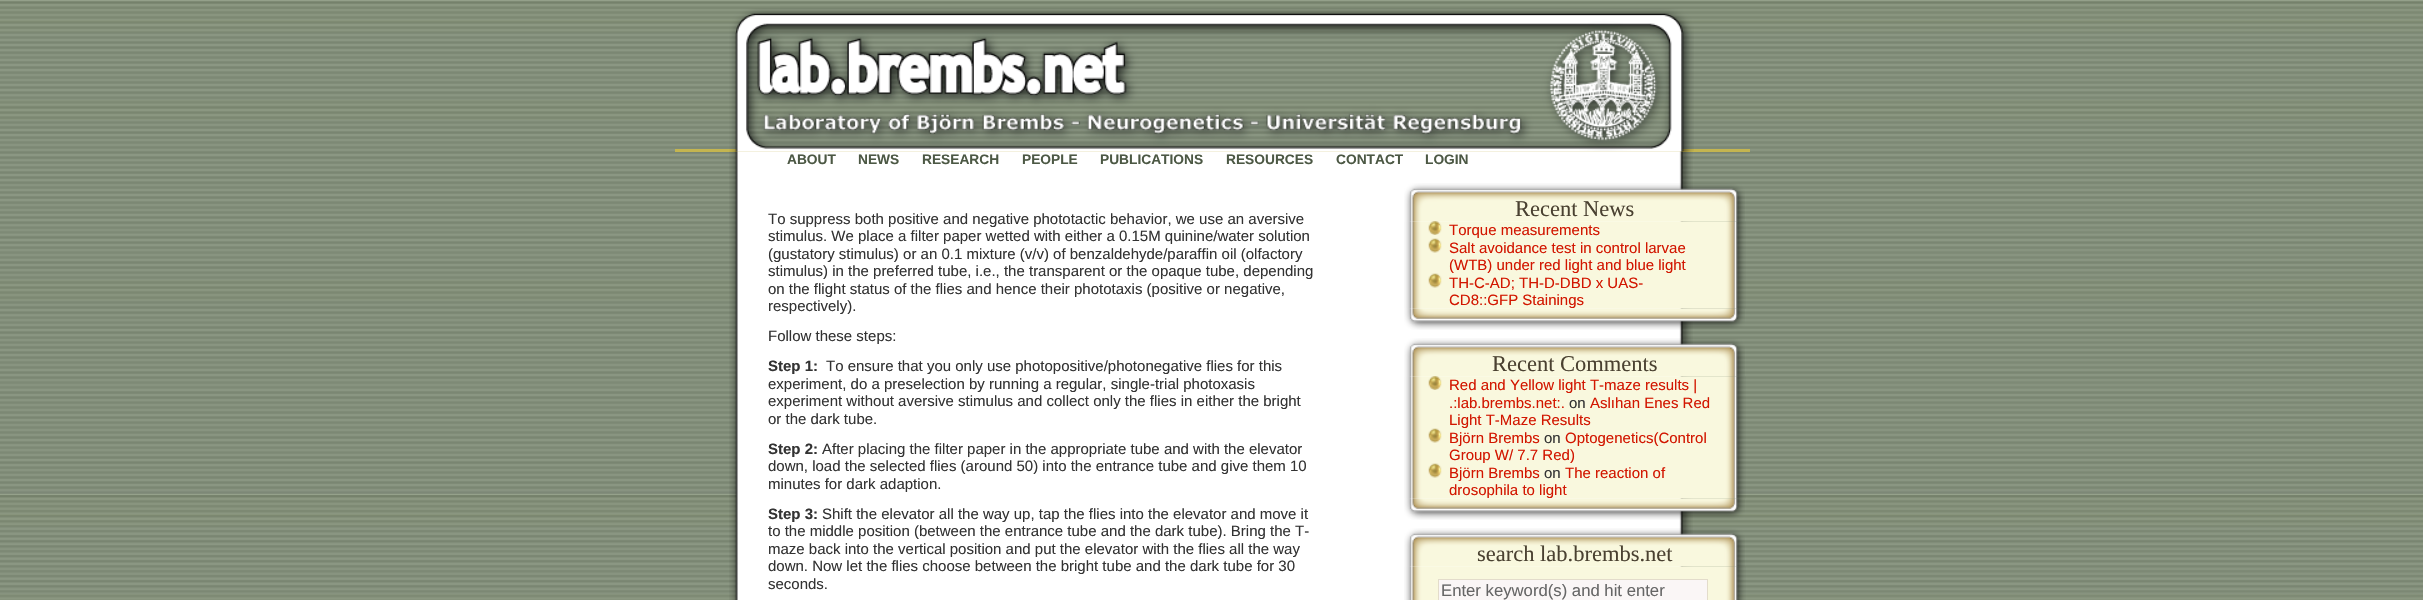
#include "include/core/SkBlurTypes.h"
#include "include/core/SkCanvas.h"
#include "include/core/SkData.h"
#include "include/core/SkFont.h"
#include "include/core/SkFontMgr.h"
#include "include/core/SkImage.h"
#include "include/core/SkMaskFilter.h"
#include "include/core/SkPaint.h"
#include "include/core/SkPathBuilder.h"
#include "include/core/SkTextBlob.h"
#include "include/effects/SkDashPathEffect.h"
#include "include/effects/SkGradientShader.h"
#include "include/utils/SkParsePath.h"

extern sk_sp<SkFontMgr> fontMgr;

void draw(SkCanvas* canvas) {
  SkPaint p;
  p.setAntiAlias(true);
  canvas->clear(SK_ColorWHITE);
  canvas->drawImageRect(SkImages::DeferredFromEncodedData(SkData::MakeFromFileName("images/1.png")), SkRect::MakeLTRB(0, 0, 2423, 600), SkSamplingOptions());
  p.setColor(SkColorSetRGB(196, 181, 80));
  canvas->drawRect(SkRect::MakeLTRB(675, 149, 1750, 152), p);
  canvas->drawImageRect(SkImages::DeferredFromEncodedData(SkData::MakeFromFileName("images/3.png")), SkRect::MakeLTRB(729, 151, 1693, 600), SkSamplingOptions());
  canvas->drawImageRect(SkImages::DeferredFromEncodedData(SkData::MakeFromFileName("images/2.png")), SkRect::MakeLTRB(729, 8, 1694, 152), SkSamplingOptions());
  canvas->drawImageRect(SkImages::DeferredFromEncodedData(SkData::MakeFromFileName("images/4.png")), SkRect::MakeLTRB(1404, 183, 1745, 222), SkSamplingOptions());
  canvas->drawImageRect(SkImages::DeferredFromEncodedData(SkData::MakeFromFileName("images/5.png")), SkRect::MakeLTRB(1404, 221, 1746, 309), SkSamplingOptions());
  canvas->drawImageRect(SkImages::DeferredFromEncodedData(SkData::MakeFromFileName("images/6.png")), SkRect::MakeLTRB(1428, 221, 1442, 235), SkSamplingOptions());
  canvas->drawImageRect(SkImages::DeferredFromEncodedData(SkData::MakeFromFileName("images/7.png")), SkRect::MakeLTRB(1428, 238, 1442, 253), SkSamplingOptions());
  canvas->drawImageRect(SkImages::DeferredFromEncodedData(SkData::MakeFromFileName("images/7.png")), SkRect::MakeLTRB(1428, 273, 1442, 288), SkSamplingOptions());
  canvas->drawImageRect(SkImages::DeferredFromEncodedData(SkData::MakeFromFileName("images/8.png")), SkRect::MakeLTRB(1404, 308, 1745, 330), SkSamplingOptions());
  canvas->drawImageRect(SkImages::DeferredFromEncodedData(SkData::MakeFromFileName("images/9.png")), SkRect::MakeLTRB(1404, 338, 1745, 377), SkSamplingOptions());
  canvas->drawImageRect(SkImages::DeferredFromEncodedData(SkData::MakeFromFileName("images/10.png")), SkRect::MakeLTRB(1404, 376, 1746, 499), SkSamplingOptions());
  canvas->drawImageRect(SkImages::DeferredFromEncodedData(SkData::MakeFromFileName("images/6.png")), SkRect::MakeLTRB(1428, 376, 1442, 390), SkSamplingOptions());
  canvas->drawImageRect(SkImages::DeferredFromEncodedData(SkData::MakeFromFileName("images/7.png")), SkRect::MakeLTRB(1428, 428, 1442, 443), SkSamplingOptions());
  canvas->drawImageRect(SkImages::DeferredFromEncodedData(SkData::MakeFromFileName("images/7.png")), SkRect::MakeLTRB(1428, 463, 1442, 478), SkSamplingOptions());
  canvas->drawImageRect(SkImages::DeferredFromEncodedData(SkData::MakeFromFileName("images/11.png")), SkRect::MakeLTRB(1404, 498, 1745, 520), SkSamplingOptions());
  canvas->drawImageRect(SkImages::DeferredFromEncodedData(SkData::MakeFromFileName("images/12.png")), SkRect::MakeLTRB(1404, 528, 1745, 567), SkSamplingOptions());
  canvas->drawImageRect(SkImages::DeferredFromEncodedData(SkData::MakeFromFileName("images/13.png")), SkRect::MakeLTRB(1404, 566, 1746, 600), SkSamplingOptions());
  p.setColor(SkColorSetRGB(250, 246, 246));
  canvas->drawRect(SkRect::MakeLTRB(1438.5f, 579.5f, 1707.5f, 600.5f), p);
  p.setStyle(SkPaint::kStroke_Style);
  p.setStrokeWidth(1);
  p.setColor(SkColorSetRGB(227, 220, 203));
  canvas->drawRect(SkRect::MakeLTRB(1438.5f, 579.5f, 1707.5f, 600.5f), p);
  SkFont font1(fontMgr->matchFamilyStyle("Liberation Sans", SkFontStyle::Bold()), 13.75f);
  font1.setSubpixel(true);
  p.setStyle(SkPaint::kFill_Style);
  p.setColor(SkColorSetRGB(76, 88, 68));
  canvas->drawString("ABOUT", 787, 164, font1, p);
  canvas->drawString("NEWS", 858, 164, font1, p);
  canvas->drawString("RESEARCH", 922, 164, font1, p);
  canvas->drawString("PEOPLE", 1022, 164, font1, p);
  canvas->drawString("PUBLICATIONS", 1100, 164, font1, p);
  canvas->drawString("RESOURCES", 1226, 164, font1, p);
  canvas->drawString("CONTACT", 1336, 164, font1, p);
  canvas->drawString("LOGIN", 1425, 164, font1, p);
  SkFont font2(fontMgr->matchFamilyStyle("Liberation Sans", SkFontStyle::Normal()), 15);
  font2.setSubpixel(true);
  p.setColor(SkColorSetRGB(51, 51, 51));
  canvas->drawString("To suppress both positive and negative phototactic behavior, we use an aversive", 768, 224, font2, p);
  canvas->drawString("stimulus. We place a filter paper wetted with either a 0.15M quinine/water solution", 768, 241, font2, p);
  canvas->drawString("(gustatory stimulus) or an 0.1 mixture (v/v) of benzaldehyde/paraffin oil (olfactory", 768, 259, font2, p);
  canvas->drawString("stimulus) in the preferred tube, i.e., the transparent or the opaque tube, depending", 768, 276, font2, p);
  canvas->drawString("on the flight status of the flies and hence their phototaxis (positive or negative,", 768, 294, font2, p);
  canvas->drawString("respectively).", 768, 311, font2, p);
  canvas->drawString("Follow these steps:", 768, 341, font2, p);
  SkFont font3(fontMgr->matchFamilyStyle("Liberation Sans", SkFontStyle::Bold()), 15);
  font3.setSubpixel(true);
  canvas->drawString("Step 1:", 768, 371, font3, p);
  canvas->drawString("To ensure that you only use photopositive/photonegative flies for this", 826, 371, font2, p);
  canvas->drawString("experiment, do a preselection by running a regular, single-trial photoxasis", 768, 389, font2, p);
  canvas->drawString("experiment without aversive stimulus and collect only the flies in either the bright", 768, 406, font2, p);
  canvas->drawString("or the dark tube.", 768, 424, font2, p);
  canvas->drawString("Step 2:", 768, 454, font3, p);
  canvas->drawString("After placing the filter paper in the appropriate tube and with the elevator", 822, 454, font2, p);
  canvas->drawString("down, load the selected flies (around 50) into the entrance tube and give them 10", 768, 471, font2, p);
  canvas->drawString("minutes for dark adaption.", 768, 489, font2, p);
  canvas->drawString("Step 3:", 768, 519, font3, p);
  canvas->drawString("Shift the elevator all the way up, tap the flies into the elevator and move it", 822, 519, font2, p);
  canvas->drawString("to the middle position (between the entrance tube and the dark tube). Bring the T-", 768, 536, font2, p);
  canvas->drawString("maze back into the vertical position and put the elevator with the flies all the way", 768, 554, font2, p);
  canvas->drawString("down. Now let the flies choose between the bright tube and the dark tube for 30", 768, 571, font2, p);
  canvas->drawString("seconds.", 768, 589, font2, p);
  SkFont font4(fontMgr->matchFamilyStyle("Liberation Serif", SkFontStyle::Normal()), 22.5f);
  font4.setSubpixel(true);
  p.setColor(SkColorSetRGB(74, 65, 49));
  canvas->drawString("Recent News", 1515, 216, font4, p);
  p.setColor(SkColorSetRGB(210, 22, 0));
  canvas->drawString("Torque measurements", 1449, 235, font2, p);
  canvas->drawString("Salt avoidance test in control larvae", 1449, 253, font2, p);
  canvas->drawString("(WTB) under red light and blue light", 1449, 270, font2, p);
  canvas->drawString("TH-C-AD; TH-D-DBD x UAS-", 1449, 288, font2, p);
  canvas->drawString("CD8::GFP Stainings", 1449, 305, font2, p);
  p.setColor(SkColorSetRGB(74, 65, 49));
  canvas->drawString("Recent Comments", 1492, 371, font4, p);
  p.setColor(SkColorSetRGB(210, 22, 0));
  canvas->drawString("Red and Yellow light T-maze results |", 1449, 390, font2, p);
  canvas->drawString(".:lab.brembs.net:.", 1449, 408, font2, p);
  p.setColor(SkColorSetRGB(51, 51, 51));
  canvas->drawString("on", 1569, 408, font2, p);
  p.setColor(SkColorSetRGB(210, 22, 0));
  canvas->drawString("Aslıhan Enes Red", 1590, 408, font2, p);
  canvas->drawString("Light T-Maze Results", 1449, 425, font2, p);
  canvas->drawString("Björn Brembs", 1449, 443, font2, p);
  p.setColor(SkColorSetRGB(51, 51, 51));
  canvas->drawString("on", 1544, 443, font2, p);
  p.setColor(SkColorSetRGB(210, 22, 0));
  canvas->drawString("Optogenetics(Control", 1565, 443, font2, p);
  canvas->drawString("Group W/ 7.7 Red)", 1449, 460, font2, p);
  canvas->drawString("Björn Brembs", 1449, 478, font2, p);
  p.setColor(SkColorSetRGB(51, 51, 51));
  canvas->drawString("on", 1544, 478, font2, p);
  p.setColor(SkColorSetRGB(210, 22, 0));
  canvas->drawString("The reaction of", 1565, 478, font2, p);
  canvas->drawString("drosophila to light", 1449, 495, font2, p);
  p.setColor(SkColorSetRGB(74, 65, 49));
  canvas->drawString("search lab.brembs.net", 1477, 561, font4, p);
  SkFont font5(fontMgr->matchFamilyStyle("Liberation Sans", SkFontStyle::Normal()), 16.7f);
  font5.setSubpixel(true);
  p.setColor(SkColorSetRGB(102, 102, 102));
  canvas->drawString("Enter keyword(s) and hit enter", 1441, 596, font5, p);
}
